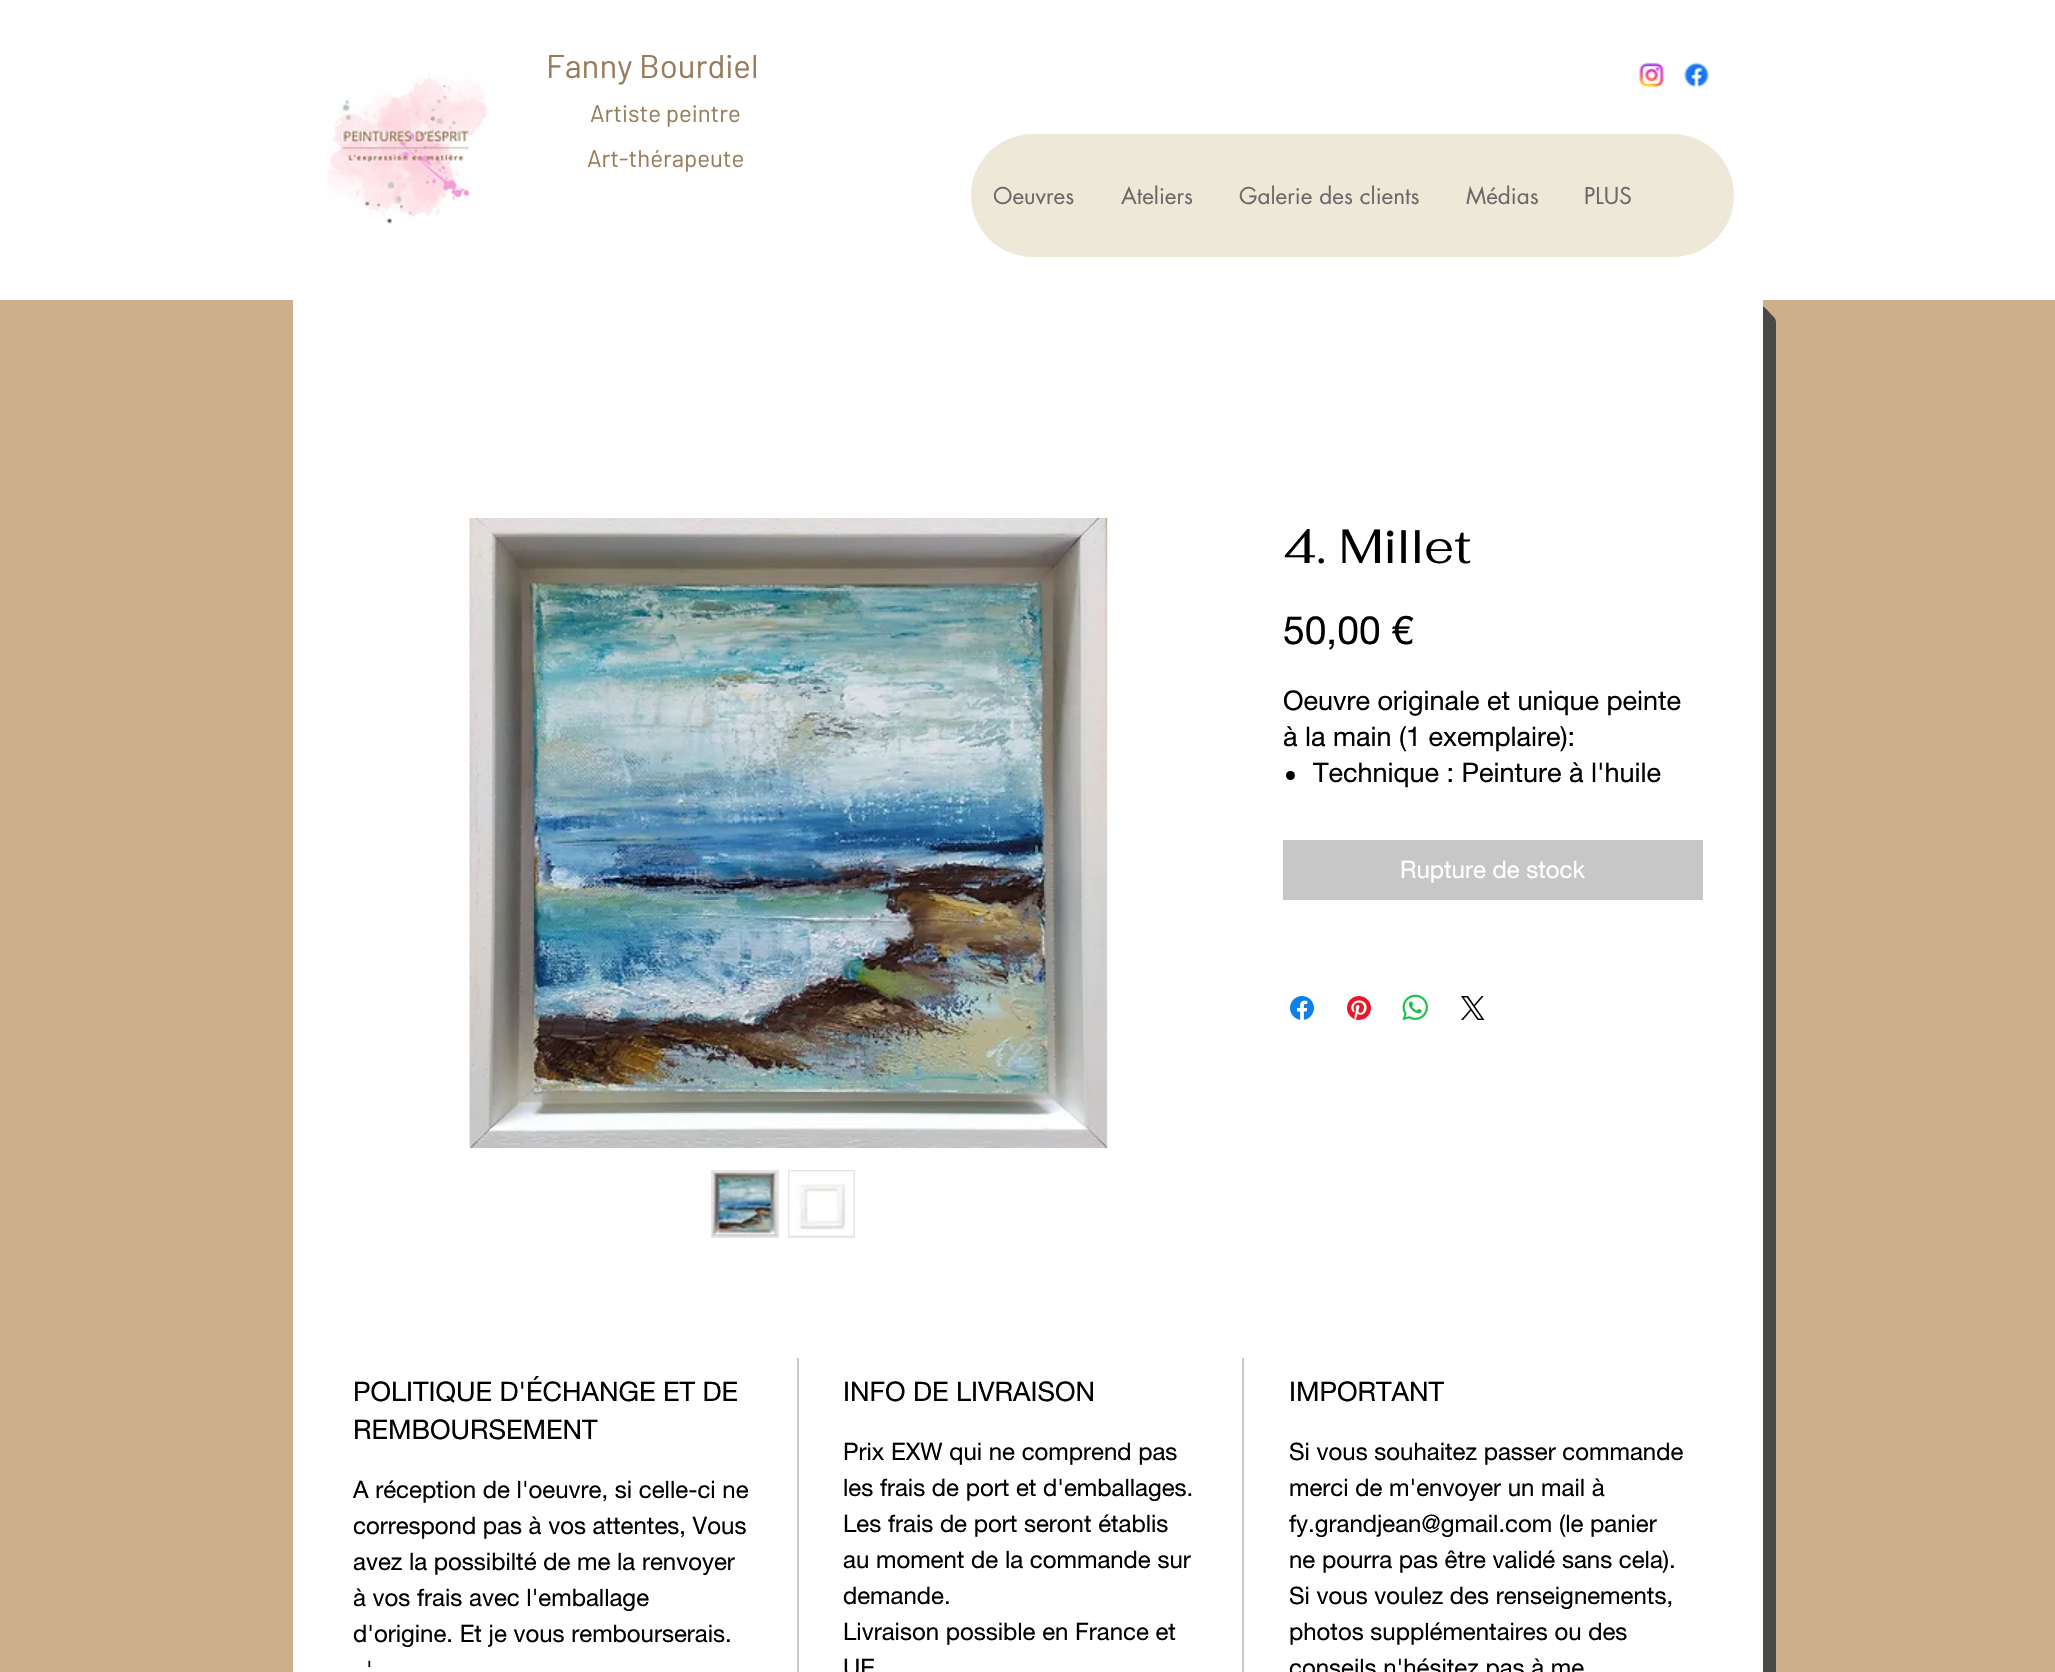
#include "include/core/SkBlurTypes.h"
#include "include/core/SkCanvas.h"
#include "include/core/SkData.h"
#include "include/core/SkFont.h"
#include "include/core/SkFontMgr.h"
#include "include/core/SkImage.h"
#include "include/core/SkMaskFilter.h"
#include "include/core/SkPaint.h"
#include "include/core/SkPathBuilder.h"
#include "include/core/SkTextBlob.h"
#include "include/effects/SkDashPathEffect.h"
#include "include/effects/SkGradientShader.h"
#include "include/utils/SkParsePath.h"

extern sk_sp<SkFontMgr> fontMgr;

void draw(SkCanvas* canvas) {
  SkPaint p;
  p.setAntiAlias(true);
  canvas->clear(SkColorSetRGB(205, 175, 140));
  p.setColor(SK_ColorWHITE);
  canvas->drawRect(SkRect::MakeLTRB(0, 0, 2055, 300), p);
  canvas->drawImageRect(SkImages::DeferredFromEncodedData(SkData::MakeFromFileName("images/1.png")), SkRect::MakeLTRB(326, 73, 488, 224), SkSamplingOptions());
  canvas->drawImageRect(SkImages::DeferredFromEncodedData(SkData::MakeFromFileName("images/2.png")), SkRect::MakeLTRB(1638, 62, 1665, 88), SkSamplingOptions());
  canvas->drawImageRect(SkImages::DeferredFromEncodedData(SkData::MakeFromFileName("images/3.png")), SkRect::MakeLTRB(1683, 62, 1710, 88), SkSamplingOptions());
  p.setColor(SkColorSetRGB(238, 232, 216));
  canvas->drawRoundRect(SkRect::MakeLTRB(971, 134, 1734, 257), 61.5f, 61.5f, p);
  p.setColor(SkColorSetRGB(74, 73, 70));
  canvas->drawPath(SkPathBuilder().moveTo(306, 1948).lineTo(306, 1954).cubicTo(306, 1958, 310, 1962, 314, 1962).lineTo(1768, 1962).cubicTo(1772, 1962, 1776, 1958, 1776, 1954).lineTo(1776, 322).cubicTo(1776, 318, 1772, 314, 1768, 314).lineTo(1762, 314).lineTo(1762, 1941).cubicTo(1762, 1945, 1759, 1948, 1755, 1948).close().detach(), p);
  canvas->drawPath(SkPathBuilder().moveTo(303, 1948).lineTo(303, 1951).cubicTo(303, 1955, 307, 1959, 311, 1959).lineTo(1765, 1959).cubicTo(1769, 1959, 1773, 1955, 1773, 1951).lineTo(1773, 319).cubicTo(1773, 315, 1769, 311, 1765, 311).lineTo(1762, 311).lineTo(1762, 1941).cubicTo(1762, 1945, 1759, 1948, 1755, 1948).close().detach(), p);
  canvas->drawPath(SkPathBuilder().moveTo(300, 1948).cubicTo(300, 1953, 304, 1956, 308, 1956).lineTo(1762, 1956).cubicTo(1766, 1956, 1770, 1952, 1770, 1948).lineTo(1770, 316).cubicTo(1770, 312, 1767, 308, 1762, 308).lineTo(1762, 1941).cubicTo(1762, 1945, 1759, 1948, 1755, 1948).close().detach(), p);
  canvas->drawPath(SkPathBuilder().moveTo(298, 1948).cubicTo(299, 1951, 302, 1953, 305, 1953).lineTo(1759, 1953).cubicTo(1763, 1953, 1767, 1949, 1767, 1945).lineTo(1767, 313).cubicTo(1767, 310, 1765, 307, 1762, 306).lineTo(1762, 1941).cubicTo(1762, 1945, 1759, 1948, 1755, 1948).lineTo(300, 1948).close().detach(), p);
  canvas->drawPath(SkPathBuilder().moveTo(296, 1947).cubicTo(298, 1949, 300, 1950, 302, 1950).lineTo(1756, 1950).cubicTo(1760, 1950, 1764, 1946, 1764, 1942).lineTo(1764, 310).cubicTo(1764, 308, 1763, 306, 1762, 305).lineTo(1762, 308).lineTo(1762, 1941).cubicTo(1762, 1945, 1759, 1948, 1755, 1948).lineTo(300, 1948).cubicTo(299, 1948, 297, 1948, 296, 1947).close().detach(), p);
  p.setColor(SK_ColorWHITE);
  canvas->drawRect(SkRect::MakeLTRB(293, 300, 1763, 1672), p);
  canvas->drawImageRect(SkImages::DeferredFromEncodedData(SkData::MakeFromFileName("images/4.png")), SkRect::MakeLTRB(469, 518, 1108, 1148), SkSamplingOptions());
  p.setColor(SkColorSetRGB(232, 230, 230));
  canvas->drawRect(SkRect::MakeLTRB(712, 1171, 778, 1237), p);
  p.setStyle(SkPaint::kStroke_Style);
  p.setStrokeWidth(2);
  p.setColor(SkColorSetRGB(230, 228, 228));
  canvas->drawRect(SkRect::MakeLTRB(712, 1171, 778, 1237), p);
  canvas->drawImageRect(SkImages::DeferredFromEncodedData(SkData::MakeFromFileName("images/5.png")), SkRect::MakeLTRB(712, 1171, 778, 1237), SkSamplingOptions());
  p.setStyle(SkPaint::kFill_Style);
  p.setColor(SkColorSetRGB(232, 230, 230));
  canvas->drawRect(SkRect::MakeLTRB(788, 1170, 855, 1238), p);
  canvas->drawImageRect(SkImages::DeferredFromEncodedData(SkData::MakeFromFileName("images/6.png")), SkRect::MakeLTRB(789, 1171, 854, 1236), SkSamplingOptions());
  p.setColor(SK_ColorBLACK);
  canvas->drawCircle(1290.5f, 775.5f, 4.5f, p);
  p.setColor(SkColorSetRGB(199, 199, 199));
  canvas->drawRect(SkRect::MakeLTRB(1283, 840, 1703, 900), p);
  canvas->drawImageRect(SkImages::DeferredFromEncodedData(SkData::MakeFromFileName("images/7.png")), SkRect::MakeLTRB(1290, 996, 1314, 1020), SkSamplingOptions());
  canvas->drawImageRect(SkImages::DeferredFromEncodedData(SkData::MakeFromFileName("images/8.png")), SkRect::MakeLTRB(1347, 996, 1371, 1020), SkSamplingOptions());
  canvas->drawImageRect(SkImages::DeferredFromEncodedData(SkData::MakeFromFileName("images/9.png")), SkRect::MakeLTRB(1402, 994, 1428, 1021), SkSamplingOptions());
  canvas->drawImageRect(SkImages::DeferredFromEncodedData(SkData::MakeFromFileName("images/10.png")), SkRect::MakeLTRB(1461, 996, 1485, 1020), SkSamplingOptions());
  canvas->drawRect(SkRect::MakeLTRB(797, 1358, 799, 1672), p);
  canvas->drawRect(SkRect::MakeLTRB(1242, 1358, 1244, 1672), p);
  SkFont font1(fontMgr->matchFamilyStyle("Barlow", SkFontStyle::Normal()), 33);
  font1.setSubpixel(true);
  p.setColor(SkColorSetRGB(151, 123, 90));
  canvas->drawString("Fanny Bourdiel", 546, 78, font1, p);
  SkFont font2(fontMgr->matchFamilyStyle("Barlow", SkFontStyle::Normal()), 24);
  font2.setSubpixel(true);
  canvas->drawString("Artiste peintre", 590, 122, font2, p);
  canvas->drawString("Art-thérapeute", 587, 167, font2, p);
  SkFont font3(fontMgr->matchFamilyStyle("futura", SkFontStyle::Normal()), 22.5f);
  font3.setSubpixel(true);
  p.setColor(SkColorSetRGB(105, 105, 105));
  canvas->drawString("Oeuvres", 993, 204, font3, p);
  canvas->drawString("Ateliers", 1121, 204, font3, p);
  canvas->drawString("Galerie des clients", 1239, 204, font3, p);
  canvas->drawString("Médias", 1466, 204, font3, p);
  canvas->drawString("PLUS", 1584, 204, font3, p);
  SkFont font4(fontMgr->matchFamilyStyle("Fahkwang", SkFontStyle::Normal()), 48);
  font4.setSubpixel(true);
  p.setColor(SK_ColorBLACK);
  canvas->drawString("4. Millet", 1283, 563, font4, p);
  SkFont font5(fontMgr->matchFamilyStyle("helvetica neue", SkFontStyle::Normal()), 39);
  font5.setSubpixel(true);
  canvas->drawString("50,00 €", 1283, 644, font5, p);
  SkFont font6(fontMgr->matchFamilyStyle("helvetica neue", SkFontStyle::Normal()), 27);
  font6.setSubpixel(true);
  canvas->drawString("Oeuvre originale et unique peinte", 1283, 710, font6, p);
  canvas->drawString("à la main (1 exemplaire):", 1283, 746, font6, p);
  canvas->drawString("Technique : Peinture à l'huile", 1313, 782, font6, p);
  SkFont font7(fontMgr->matchFamilyStyle("helvetica neue", SkFontStyle::Normal()), 24);
  font7.setSubpixel(true);
  p.setColor(SK_ColorWHITE);
  canvas->drawString("Rupture de stock", 1400, 878, font7, p);
  p.setColor(SK_ColorBLACK);
  canvas->drawString("POLITIQUE D'ÉCHANGE ET DE", 353, 1401, font6, p);
  canvas->drawString("REMBOURSEMENT", 353, 1439, font6, p);
  canvas->drawString("A réception de l'oeuvre, si celle-ci ne", 353, 1498, font7, p);
  canvas->drawString("correspond pas à vos attentes, Vous", 353, 1534, font7, p);
  canvas->drawString("avez la possibilté de me la renvoyer", 353, 1570, font7, p);
  canvas->drawString("à vos frais avec l'emballage", 353, 1606, font7, p);
  canvas->drawString("d'origine. Et je vous rembourserais.", 353, 1642, font7, p);
  canvas->drawString("'", 366, 1678, font7, p);
  canvas->drawString("INFO DE LIVRAISON", 843, 1401, font6, p);
  canvas->drawString("Prix EXW qui ne comprend pas", 843, 1460, font7, p);
  canvas->drawString("les frais de port et d'emballages.", 843, 1496, font7, p);
  canvas->drawString("Les frais de port seront établis", 843, 1532, font7, p);
  canvas->drawString("au moment de la commande sur", 843, 1568, font7, p);
  canvas->drawString("demande.", 843, 1604, font7, p);
  canvas->drawString("Livraison possible en France et", 843, 1640, font7, p);
  canvas->drawString("UE", 843, 1676, font7, p);
  canvas->drawString("IMPORTANT", 1289, 1401, font6, p);
  canvas->drawString("Si vous souhaitez passer commande", 1289, 1460, font7, p);
  canvas->drawString("merci de m'envoyer un mail à", 1289, 1496, font7, p);
  canvas->drawString("fy.grandjean@gmail.com (le panier", 1289, 1532, font7, p);
  canvas->drawString("ne pourra pas être validé sans cela).", 1289, 1568, font7, p);
  canvas->drawString("Si vous voulez des renseignements,", 1289, 1604, font7, p);
  canvas->drawString("photos supplémentaires ou des", 1289, 1640, font7, p);
  canvas->drawString("conseils n'hésitez pas à me", 1289, 1676, font7, p);
}
